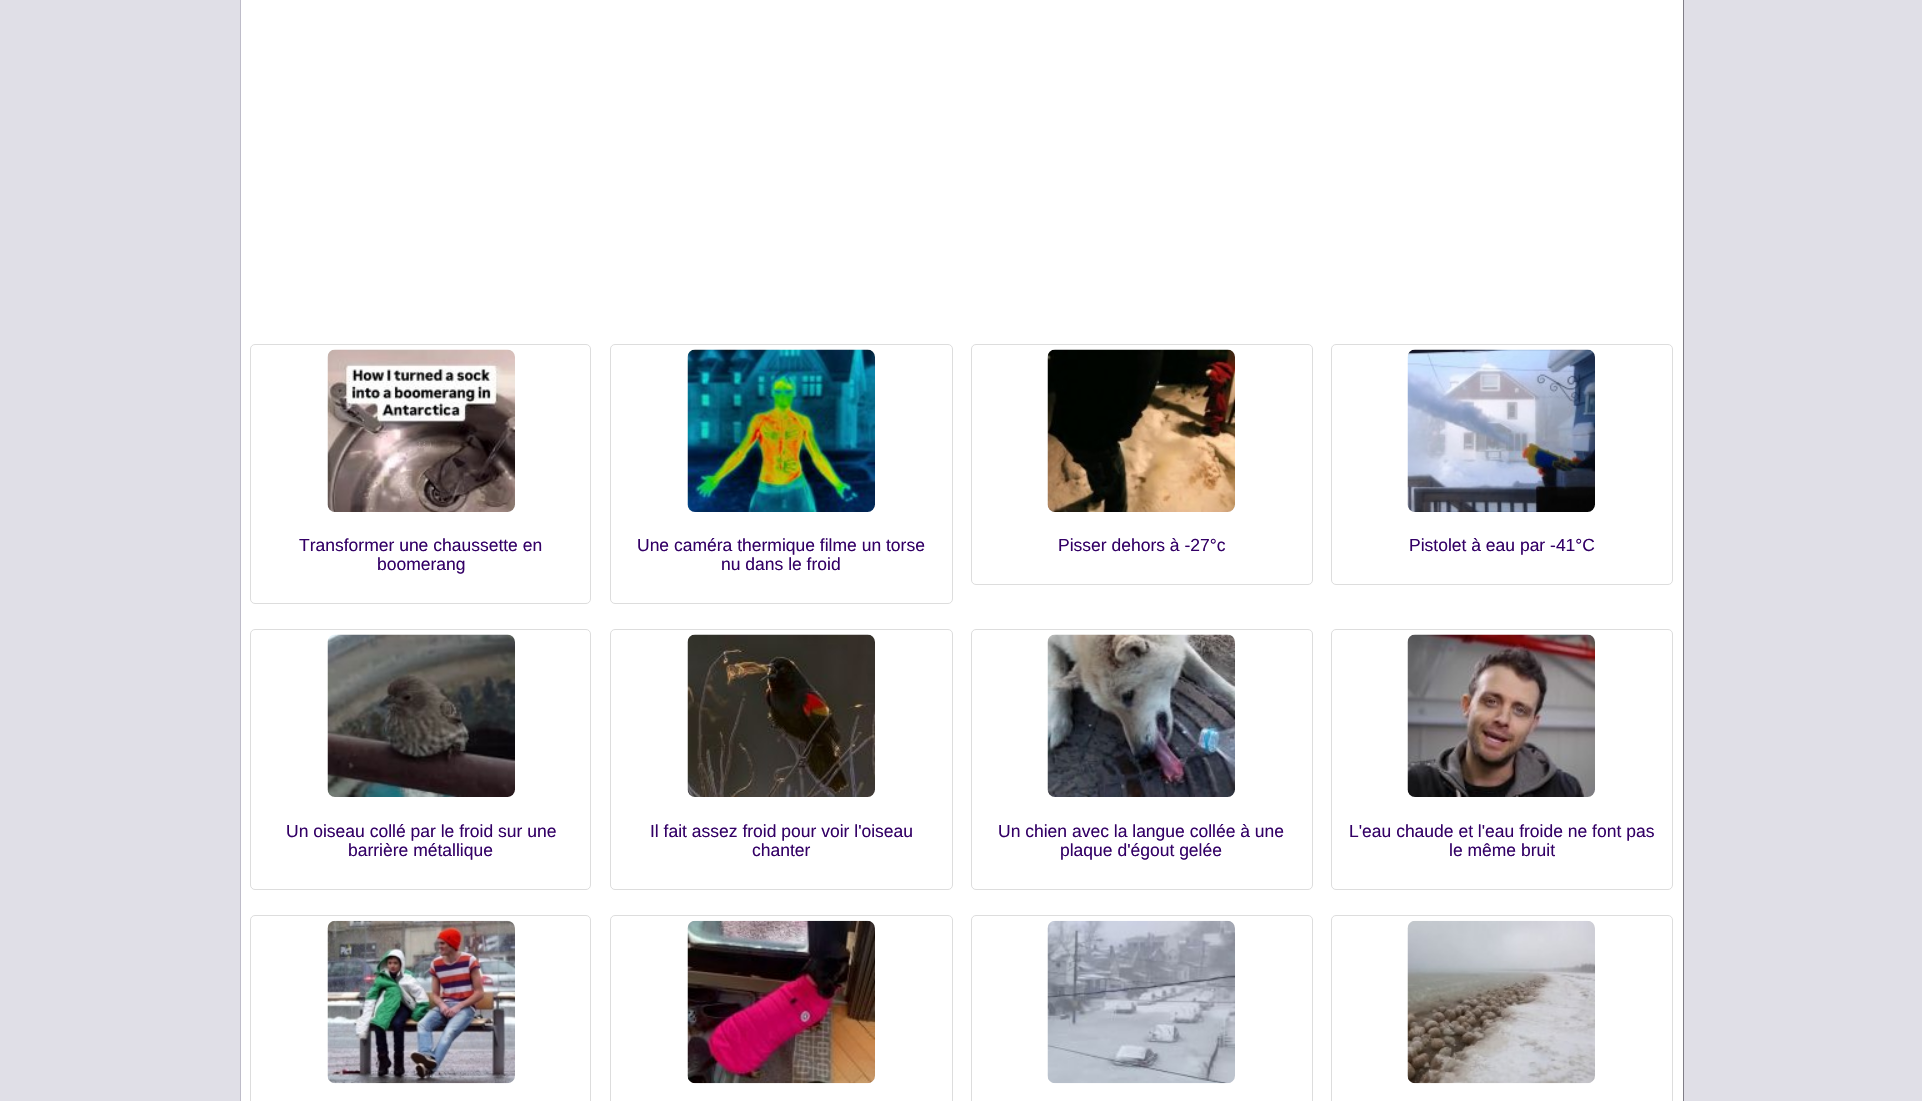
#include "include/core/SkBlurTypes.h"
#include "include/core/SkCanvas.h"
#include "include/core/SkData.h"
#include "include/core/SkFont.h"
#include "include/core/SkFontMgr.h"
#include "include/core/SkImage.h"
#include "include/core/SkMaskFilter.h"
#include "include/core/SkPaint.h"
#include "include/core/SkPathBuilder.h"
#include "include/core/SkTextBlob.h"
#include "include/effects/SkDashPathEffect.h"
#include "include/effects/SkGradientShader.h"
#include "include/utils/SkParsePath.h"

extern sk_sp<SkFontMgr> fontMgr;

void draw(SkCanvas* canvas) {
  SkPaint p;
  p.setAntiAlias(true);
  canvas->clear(SkColorSetRGB(224, 223, 231));
  p.setColor(SK_ColorWHITE);
  canvas->drawRect(SkRect::MakeLTRB(241, 0, 1683, 1101), p);
  p.setColor(SkColorSetRGB(127, 125, 134));
  canvas->drawRect(SkRect::MakeLTRB(1683, 0, 1684, 1101), p);
  p.setColor(SkColorSetRGB(190, 188, 201));
  canvas->drawRect(SkRect::MakeLTRB(240, 0, 241, 1101), p);
  p.setStyle(SkPaint::kStroke_Style);
  p.setStrokeWidth(1);
  p.setColor(SkColorSetRGB(221, 221, 221));
  canvas->drawRoundRect(SkRect::MakeLTRB(250.5f, 344.5f, 590.5f, 603.5f), 4.5f, 4.5f, p);
  canvas->drawImageRect(SkImages::DeferredFromEncodedData(SkData::MakeFromFileName("images/1.png")), SkRect::MakeLTRB(327, 349, 515, 512), SkSamplingOptions());
  canvas->drawRoundRect(SkRect::MakeLTRB(610.5f, 344.5f, 952.5f, 603.5f), 4.5f, 4.5f, p);
  canvas->drawImageRect(SkImages::DeferredFromEncodedData(SkData::MakeFromFileName("images/2.png")), SkRect::MakeLTRB(687, 349, 875, 512), SkSamplingOptions());
  canvas->drawRoundRect(SkRect::MakeLTRB(971.5f, 344.5f, 1312.5f, 584.5f), 4.5f, 4.5f, p);
  canvas->drawImageRect(SkImages::DeferredFromEncodedData(SkData::MakeFromFileName("images/3.png")), SkRect::MakeLTRB(1047, 349, 1235, 512), SkSamplingOptions());
  canvas->drawRoundRect(SkRect::MakeLTRB(1331.5f, 344.5f, 1672.5f, 584.5f), 4.5f, 4.5f, p);
  canvas->drawImageRect(SkImages::DeferredFromEncodedData(SkData::MakeFromFileName("images/4.png")), SkRect::MakeLTRB(1407, 349, 1595, 512), SkSamplingOptions());
  canvas->drawRoundRect(SkRect::MakeLTRB(250.5f, 629.5f, 590.5f, 889.5f), 4.5f, 4.5f, p);
  canvas->drawImageRect(SkImages::DeferredFromEncodedData(SkData::MakeFromFileName("images/5.png")), SkRect::MakeLTRB(327, 634, 515, 797), SkSamplingOptions());
  canvas->drawRoundRect(SkRect::MakeLTRB(610.5f, 629.5f, 952.5f, 889.5f), 4.5f, 4.5f, p);
  canvas->drawImageRect(SkImages::DeferredFromEncodedData(SkData::MakeFromFileName("images/6.png")), SkRect::MakeLTRB(687, 634, 875, 797), SkSamplingOptions());
  canvas->drawRoundRect(SkRect::MakeLTRB(971.5f, 629.5f, 1312.5f, 889.5f), 4.5f, 4.5f, p);
  canvas->drawImageRect(SkImages::DeferredFromEncodedData(SkData::MakeFromFileName("images/7.png")), SkRect::MakeLTRB(1047, 634, 1235, 797), SkSamplingOptions());
  canvas->drawRoundRect(SkRect::MakeLTRB(1331.5f, 629.5f, 1672.5f, 889.5f), 4.5f, 4.5f, p);
  canvas->drawImageRect(SkImages::DeferredFromEncodedData(SkData::MakeFromFileName("images/8.png")), SkRect::MakeLTRB(1407, 634, 1595, 797), SkSamplingOptions());
  canvas->drawRoundRect(SkRect::MakeLTRB(250.5f, 915.5f, 590.5f, 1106.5f), 4.5f, 4.5f, p);
  canvas->drawImageRect(SkImages::DeferredFromEncodedData(SkData::MakeFromFileName("images/9.png")), SkRect::MakeLTRB(327, 920, 515, 1084), SkSamplingOptions());
  canvas->drawRoundRect(SkRect::MakeLTRB(610.5f, 915.5f, 952.5f, 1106.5f), 4.5f, 4.5f, p);
  canvas->drawImageRect(SkImages::DeferredFromEncodedData(SkData::MakeFromFileName("images/10.png")), SkRect::MakeLTRB(687, 920, 875, 1084), SkSamplingOptions());
  canvas->drawRoundRect(SkRect::MakeLTRB(971.5f, 915.5f, 1312.5f, 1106.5f), 4.5f, 4.5f, p);
  canvas->drawImageRect(SkImages::DeferredFromEncodedData(SkData::MakeFromFileName("images/11.png")), SkRect::MakeLTRB(1047, 920, 1235, 1084), SkSamplingOptions());
  canvas->drawRoundRect(SkRect::MakeLTRB(1331.5f, 915.5f, 1672.5f, 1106.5f), 4.5f, 4.5f, p);
  canvas->drawImageRect(SkImages::DeferredFromEncodedData(SkData::MakeFromFileName("images/12.png")), SkRect::MakeLTRB(1407, 920, 1595, 1084), SkSamplingOptions());
  SkFont font1(fontMgr->matchFamilyStyle("Liberation Sans", SkFontStyle::Normal()), 17.5f);
  font1.setSubpixel(true);
  p.setStyle(SkPaint::kFill_Style);
  p.setColor(SkColorSetRGB(51, 0, 102));
  canvas->drawString("Transformer une chaussette en", 299, 551, font1, p);
  canvas->drawString("boomerang", 377, 570, font1, p);
  canvas->drawString("Une caméra thermique filme un torse", 637, 551, font1, p);
  canvas->drawString("nu dans le froid", 721, 570, font1, p);
  canvas->drawString("Pisser dehors à -27°c", 1058, 551, font1, p);
  canvas->drawString("Pistolet à eau par -41°C", 1409, 551, font1, p);
  canvas->drawString("Un oiseau collé par le froid sur une", 286, 837, font1, p);
  canvas->drawString("barrière métallique", 348, 856, font1, p);
  canvas->drawString("Il fait assez froid pour voir l'oiseau", 650, 837, font1, p);
  canvas->drawString("chanter", 752, 856, font1, p);
  canvas->drawString("Un chien avec la langue collée à une", 998, 837, font1, p);
  canvas->drawString("plaque d'égout gelée", 1060, 856, font1, p);
  canvas->drawString("L'eau chaude et l'eau froide ne font pas", 1349, 837, font1, p);
  canvas->drawString("le même bruit", 1449, 856, font1, p);
}
